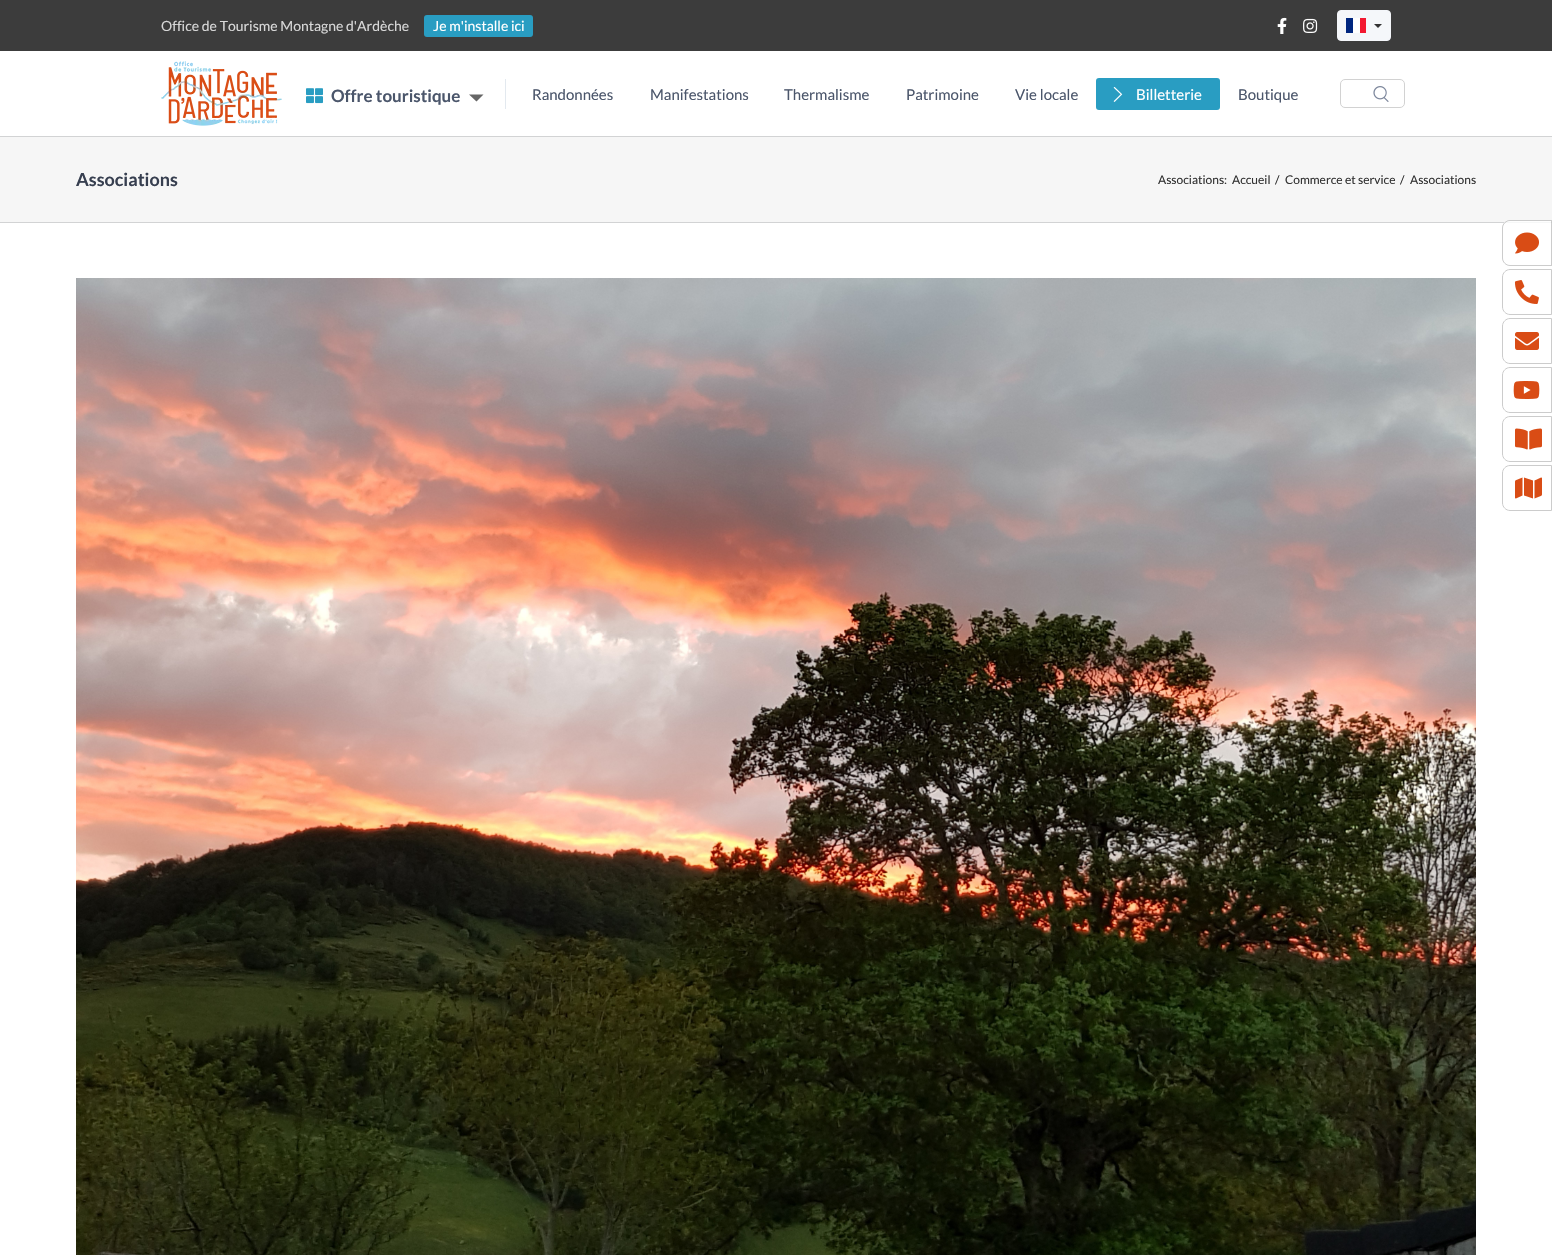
#include "include/core/SkBlurTypes.h"
#include "include/core/SkCanvas.h"
#include "include/core/SkData.h"
#include "include/core/SkFont.h"
#include "include/core/SkFontMgr.h"
#include "include/core/SkImage.h"
#include "include/core/SkMaskFilter.h"
#include "include/core/SkPaint.h"
#include "include/core/SkPathBuilder.h"
#include "include/core/SkTextBlob.h"
#include "include/effects/SkDashPathEffect.h"
#include "include/effects/SkGradientShader.h"
#include "include/utils/SkParsePath.h"

extern sk_sp<SkFontMgr> fontMgr;

void draw(SkCanvas* canvas) {
  SkPaint p;
  p.setAntiAlias(true);
  canvas->clear(SK_ColorWHITE);
  p.setColor(SkColorSetRGB(60, 60, 60));
  canvas->drawRect(SkRect::MakeLTRB(0, 0, 1552, 51), p);
  p.setColor(SkColorSetRGB(41, 157, 194));
  canvas->drawRoundRect(SkRect::MakeLTRB(424, 15, 533, 37), 3, 3, p);
  canvas->drawImageRect(SkImages::DeferredFromEncodedData(SkData::MakeFromFileName("images/1.png")), SkRect::MakeLTRB(1277, 17, 1287, 34), SkSamplingOptions());
  canvas->drawImageRect(SkImages::DeferredFromEncodedData(SkData::MakeFromFileName("images/2.png")), SkRect::MakeLTRB(1303, 18, 1318, 33), SkSamplingOptions());
  p.setColor(SkColorSetRGB(245, 247, 250));
  canvas->drawRoundRect(SkRect::MakeLTRB(1337.5f, 10.5f, 1390.5f, 40.5f), 3.5f, 3.5f, p);
  p.setStyle(SkPaint::kStroke_Style);
  p.setStrokeWidth(1);
  p.setColor(SkColorSetRGB(244, 246, 250));
  canvas->drawRoundRect(SkRect::MakeLTRB(1337.5f, 10.5f, 1390.5f, 40.5f), 3.5f, 3.5f, p);
  p.setStyle(SkPaint::kFill_Style);
  p.setColor(SkColorSetRGB(0, 38, 127));
  canvas->drawRect(SkRect::MakeLTRB(1346, 18, 1353, 33), p);
  p.setColor(SK_ColorWHITE);
  canvas->drawRect(SkRect::MakeLTRB(1353, 18, 1360, 33), p);
  p.setColor(SkColorSetRGB(243, 24, 48));
  canvas->drawRect(SkRect::MakeLTRB(1360, 18, 1366, 33), p);
  p.setColor(SkColorSetRGB(51, 51, 51));
  canvas->drawPath(SkPathBuilder().moveTo(1374, 24).lineTo(1382, 24).lineTo(1378, 28).close().detach(), p);
  canvas->drawImageRect(SkImages::DeferredFromEncodedData(SkData::MakeFromFileName("images/3.png")), SkRect::MakeLTRB(161, 61, 282, 126), SkSamplingOptions());
  canvas->drawImageRect(SkImages::DeferredFromEncodedData(SkData::MakeFromFileName("images/4.png")), SkRect::MakeLTRB(306, 88, 323, 104), SkSamplingOptions());
  p.setColor(SkColorSetRGB(102, 102, 102));
  canvas->drawPath(SkPathBuilder().moveTo(469, 94.5f).lineTo(483.5f, 94.5f).lineTo(476.5f, 101.5f).close().detach(), p);
  p.setColor(SkColorSetRGB(227, 233, 239));
  canvas->drawRect(SkRect::MakeLTRB(505, 79, 506, 109), p);
  p.setColor(SkColorSetRGB(41, 157, 194));
  canvas->drawRoundRect(SkRect::MakeLTRB(1096, 78, 1220, 110), 3, 3, p);
  canvas->drawImageRect(SkImages::DeferredFromEncodedData(SkData::MakeFromFileName("images/5.png")), SkRect::MakeLTRB(1113, 87, 1123, 102), SkSamplingOptions());
  p.setStyle(SkPaint::kStroke_Style);
  p.setColor(SkColorSetRGB(210, 210, 210));
  canvas->drawRoundRect(SkRect::MakeLTRB(1340.5f, 79.5f, 1404.5f, 107.5f), 4.5f, 4.5f, p);
  canvas->drawImageRect(SkImages::DeferredFromEncodedData(SkData::MakeFromFileName("images/6.png")), SkRect::MakeLTRB(1373, 86, 1389, 102), SkSamplingOptions());
  p.setStyle(SkPaint::kFill_Style);
  p.setColor(SkColorSetRGB(246, 246, 246));
  canvas->drawRect(SkRect::MakeLTRB(0, 137, 1552, 222), p);
  p.setColor(SkColorSetRGB(210, 211, 212));
  canvas->drawRect(SkRect::MakeLTRB(0, 136, 1552, 137), p);
  canvas->drawRect(SkRect::MakeLTRB(0, 222, 1552, 223), p);
  canvas->drawImageRect(SkImages::DeferredFromEncodedData(SkData::MakeFromFileName("images/7.png")), SkRect::MakeLTRB(76, 278, 1476, 1255), SkSamplingOptions());
  p.setColor(SkColorSetARGB(204, 255, 255, 255));
  canvas->drawPath(SkPathBuilder().moveTo(1510, 220).lineTo(1552, 220).lineTo(1552, 266).lineTo(1510, 266).cubicTo(1505.5f, 266, 1502, 262.5f, 1502, 258).lineTo(1502, 228).cubicTo(1502, 223.5f, 1505.5f, 220, 1510, 220).close().detach(), p);
  p.setStyle(SkPaint::kStroke_Style);
  p.setColor(SkColorSetARGB(51, 0, 0, 0));
  canvas->drawPath(SkPathBuilder().moveTo(1510, 220.5f).lineTo(1551.5f, 220.5f).lineTo(1551.5f, 265.5f).lineTo(1510, 265.5f).cubicTo(1506, 265.5f, 1502.5f, 262, 1502.5f, 258).lineTo(1502.5f, 228).cubicTo(1502.5f, 224, 1506, 220.5f, 1510, 220.5f).close().detach(), p);
  canvas->drawImageRect(SkImages::DeferredFromEncodedData(SkData::MakeFromFileName("images/8.png")), SkRect::MakeLTRB(1515, 232, 1539, 254), SkSamplingOptions());
  p.setColor(SkColorSetRGB(204, 204, 204));
  canvas->drawPath(SkPathBuilder().moveTo(1510, 269.5f).lineTo(1551.5f, 269.5f).lineTo(1551.5f, 314.5f).lineTo(1510, 314.5f).cubicTo(1506, 314.5f, 1502.5f, 311, 1502.5f, 307).lineTo(1502.5f, 277).cubicTo(1502.5f, 273, 1506, 269.5f, 1510, 269.5f).close().detach(), p);
  canvas->drawImageRect(SkImages::DeferredFromEncodedData(SkData::MakeFromFileName("images/9.png")), SkRect::MakeLTRB(1514, 280, 1539, 304), SkSamplingOptions());
  canvas->drawPath(SkPathBuilder().moveTo(1510, 318.5f).lineTo(1551.5f, 318.5f).lineTo(1551.5f, 363.5f).lineTo(1510, 363.5f).cubicTo(1506, 363.5f, 1502.5f, 360, 1502.5f, 356).lineTo(1502.5f, 326).cubicTo(1502.5f, 322, 1506, 318.5f, 1510, 318.5f).close().detach(), p);
  canvas->drawImageRect(SkImages::DeferredFromEncodedData(SkData::MakeFromFileName("images/10.png")), SkRect::MakeLTRB(1515, 332, 1539, 350), SkSamplingOptions());
  canvas->drawPath(SkPathBuilder().moveTo(1510, 367.5f).lineTo(1551.5f, 367.5f).lineTo(1551.5f, 412.5f).lineTo(1510, 412.5f).cubicTo(1506, 412.5f, 1502.5f, 409, 1502.5f, 405).lineTo(1502.5f, 375).cubicTo(1502.5f, 371, 1506, 367.5f, 1510, 367.5f).close().detach(), p);
  canvas->drawImageRect(SkImages::DeferredFromEncodedData(SkData::MakeFromFileName("images/11.png")), SkRect::MakeLTRB(1513, 381, 1540, 399), SkSamplingOptions());
  canvas->drawPath(SkPathBuilder().moveTo(1510, 416.5f).lineTo(1551.5f, 416.5f).lineTo(1551.5f, 461.5f).lineTo(1510, 461.5f).cubicTo(1506, 461.5f, 1502.5f, 458, 1502.5f, 454).lineTo(1502.5f, 424).cubicTo(1502.5f, 420, 1506, 416.5f, 1510, 416.5f).close().detach(), p);
  canvas->drawImageRect(SkImages::DeferredFromEncodedData(SkData::MakeFromFileName("images/12.png")), SkRect::MakeLTRB(1515, 428, 1542, 450), SkSamplingOptions());
  canvas->drawPath(SkPathBuilder().moveTo(1510, 465.5f).lineTo(1551.5f, 465.5f).lineTo(1551.5f, 510.5f).lineTo(1510, 510.5f).cubicTo(1506, 510.5f, 1502.5f, 507, 1502.5f, 503).lineTo(1502.5f, 473).cubicTo(1502.5f, 469, 1506, 465.5f, 1510, 465.5f).close().detach(), p);
  canvas->drawImageRect(SkImages::DeferredFromEncodedData(SkData::MakeFromFileName("images/13.png")), SkRect::MakeLTRB(1515, 477, 1542, 499), SkSamplingOptions());
  SkFont font1(fontMgr->matchFamilyStyle("Lato", SkFontStyle::Normal()), 14);
  font1.setSubpixel(true);
  p.setStyle(SkPaint::kFill_Style);
  p.setColor(SkColorSetRGB(216, 216, 216));
  canvas->drawString("Office de Tourisme Montagne d'Ardèche", 161, 31, font1, p);
  p.setColor(SK_ColorWHITE);
  canvas->drawString("Je m'installe ici", 433, 31, font1, p);
  SkFont font2(fontMgr->matchFamilyStyle("Lato", SkFontStyle::Bold()), 17);
  font2.setSubpixel(true);
  p.setColor(SkColorSetRGB(75, 86, 107));
  canvas->drawString("Offre touristique", 331, 102, font2, p);
  SkFont font3(fontMgr->matchFamilyStyle("Lato", SkFontStyle::Normal()), 15);
  font3.setSubpixel(true);
  canvas->drawString("Randonnées", 532, 100, font3, p);
  canvas->drawString("Manifestations", 650, 100, font3, p);
  canvas->drawString("Thermalisme", 784, 100, font3, p);
  canvas->drawString("Patrimoine", 906, 100, font3, p);
  canvas->drawString("Vie locale", 1015, 100, font3, p);
  p.setColor(SK_ColorWHITE);
  canvas->drawString("Billetterie", 1136, 100, font3, p);
  p.setColor(SkColorSetRGB(75, 86, 107));
  canvas->drawString("Boutique", 1238, 100, font3, p);
  SkFont font4(fontMgr->matchFamilyStyle("Lato", SkFontStyle::Bold()), 18);
  font4.setSubpixel(true);
  p.setColor(SkColorSetRGB(55, 63, 80));
  canvas->drawString("Associations", 76, 186, font4, p);
  SkFont font5(fontMgr->matchFamilyStyle("Lato", SkFontStyle::Normal()), 12);
  font5.setSubpixel(true);
  p.setColor(SkColorSetRGB(51, 51, 51));
  canvas->drawString("Associations:", 1158, 184, font5, p);
  canvas->drawString("Accueil", 1232, 184, font5, p);
  canvas->drawString("/", 1275, 184, font5, p);
  canvas->drawString("Commerce et service", 1285, 184, font5, p);
  canvas->drawString("/", 1400, 184, font5, p);
  canvas->drawString("Associations", 1410, 184, font5, p);
}
